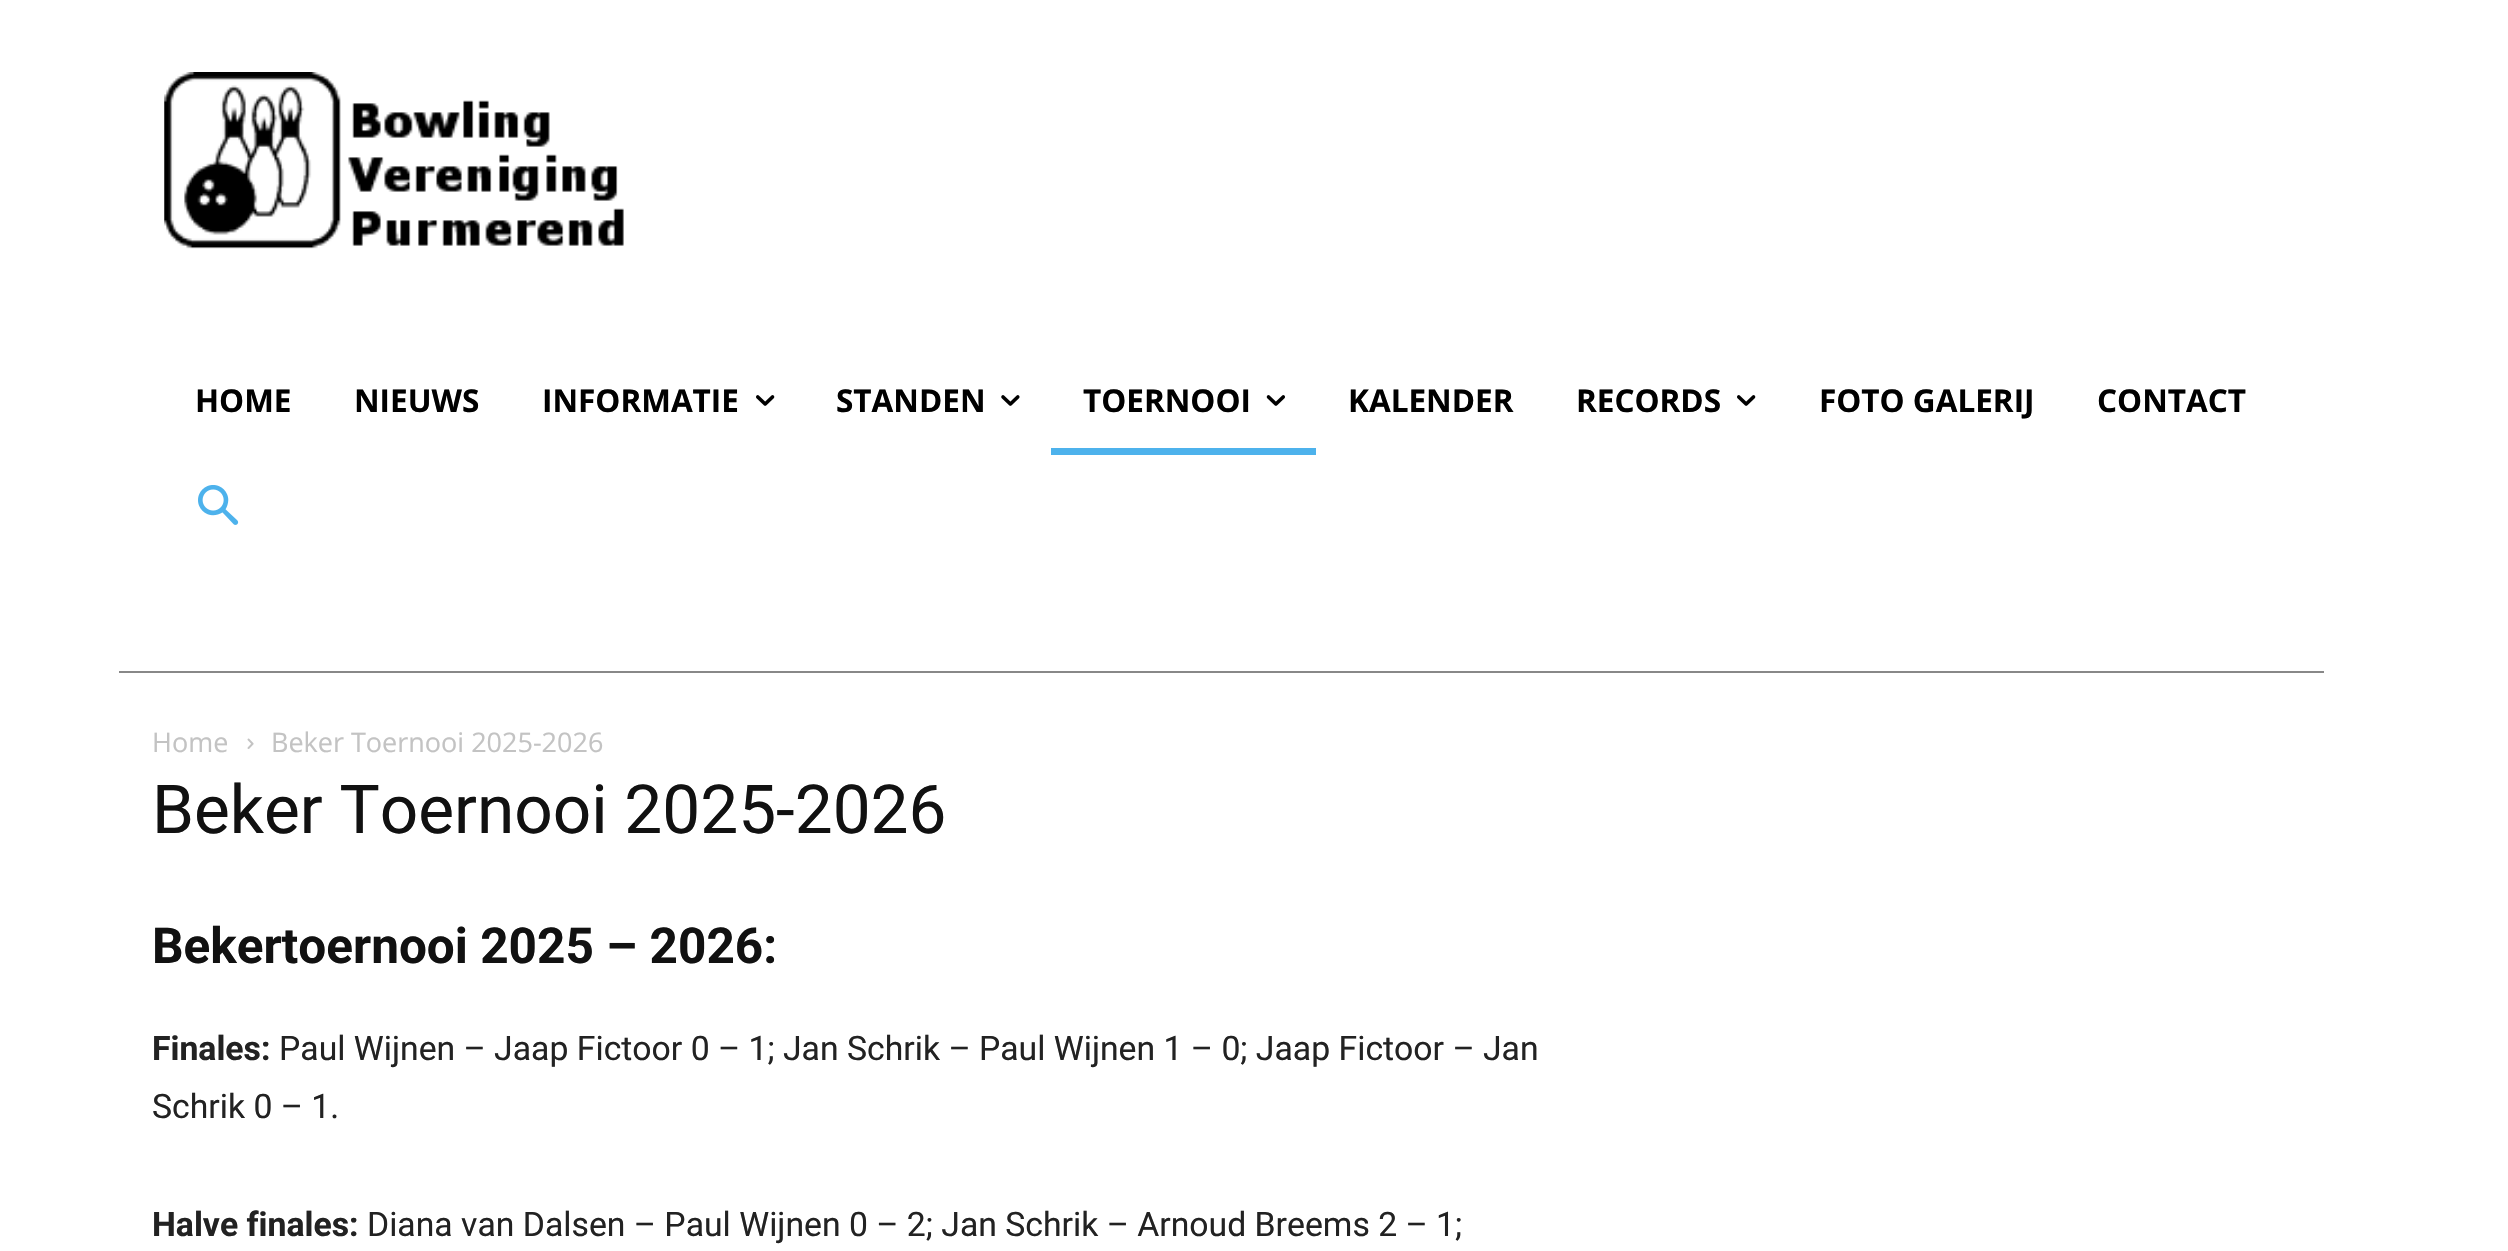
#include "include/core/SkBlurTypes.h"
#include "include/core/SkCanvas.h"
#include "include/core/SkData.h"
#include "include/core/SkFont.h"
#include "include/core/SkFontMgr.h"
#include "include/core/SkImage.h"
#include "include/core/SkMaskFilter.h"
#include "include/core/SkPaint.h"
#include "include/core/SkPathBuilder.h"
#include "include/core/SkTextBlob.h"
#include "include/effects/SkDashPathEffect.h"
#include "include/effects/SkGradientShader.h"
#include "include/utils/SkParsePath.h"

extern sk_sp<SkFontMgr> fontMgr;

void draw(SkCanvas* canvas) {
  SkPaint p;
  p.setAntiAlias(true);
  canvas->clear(SK_ColorWHITE);
  canvas->drawImageRect(SkImages::DeferredFromEncodedData(SkData::MakeFromFileName("images/1.png")), SkRect::MakeLTRB(164, 72, 624, 249), SkSamplingOptions());
  p.setColor(SkColorSetRGB(136, 136, 136));
  canvas->drawRect(SkRect::MakeLTRB(119, 671, 2324, 673), p);
  canvas->drawImageRect(SkImages::DeferredFromEncodedData(SkData::MakeFromFileName("images/2.png")), SkRect::MakeLTRB(756, 395, 775, 406), SkSamplingOptions());
  canvas->drawImageRect(SkImages::DeferredFromEncodedData(SkData::MakeFromFileName("images/3.png")), SkRect::MakeLTRB(1001, 395, 1020, 406), SkSamplingOptions());
  canvas->drawImageRect(SkImages::DeferredFromEncodedData(SkData::MakeFromFileName("images/4.png")), SkRect::MakeLTRB(1266, 395, 1285, 406), SkSamplingOptions());
  p.setColor(SkColorSetRGB(77, 178, 236));
  canvas->drawRect(SkRect::MakeLTRB(1051, 448, 1316, 455), p);
  canvas->drawImageRect(SkImages::DeferredFromEncodedData(SkData::MakeFromFileName("images/2.png")), SkRect::MakeLTRB(1737, 395, 1756, 406), SkSamplingOptions());
  canvas->drawImageRect(SkImages::DeferredFromEncodedData(SkData::MakeFromFileName("images/5.png")), SkRect::MakeLTRB(198, 485, 239, 525), SkSamplingOptions());
  canvas->drawImageRect(SkImages::DeferredFromEncodedData(SkData::MakeFromFileName("images/6.png")), SkRect::MakeLTRB(247, 738, 254, 749), SkSamplingOptions());
  SkFont font1(fontMgr->matchFamilyStyle("Open Sans", SkFontStyle::Bold()), 31.5f);
  font1.setSubpixel(true);
  p.setColor(SK_ColorBLACK);
  canvas->drawString("HOME", 195, 412, font1, p);
  canvas->drawString("NIEUWS", 354, 412, font1, p);
  canvas->drawString("INFORMATIE", 542, 412, font1, p);
  canvas->drawString("STANDEN", 836, 412, font1, p);
  canvas->drawString("TOERNOOI", 1083, 412, font1, p);
  canvas->drawString("KALENDER", 1348, 412, font1, p);
  canvas->drawString("RECORDS", 1576, 412, font1, p);
  canvas->drawString("FOTO GALERIJ", 1819, 412, font1, p);
  canvas->drawString("CONTACT", 2097, 412, font1, p);
  SkFont font2(fontMgr->matchFamilyStyle("Open Sans", SkFontStyle::Normal()), 27);
  font2.setSubpixel(true);
  p.setColor(SkColorSetRGB(195, 195, 195));
  canvas->drawString("Home", 152, 752, font2, p);
  canvas->drawString("Beker Toernooi 2025-2026", 271, 752, font2, p);
  SkFont font3(fontMgr->matchFamilyStyle("Roboto", SkFontStyle::Normal()), 67.5f);
  font3.setSubpixel(true);
  p.setColor(SkColorSetRGB(17, 17, 17));
  canvas->drawString("Beker Toernooi 2025-2026", 152, 833, font3, p);
  SkFont font4(fontMgr->matchFamilyStyle("Roboto", SkFontStyle::Bold()), 49.5f);
  font4.setSubpixel(true);
  canvas->drawString("Bekertoernooi 2025 – 2026:", 152, 963, font4, p);
  SkFont font5(fontMgr->matchFamilyStyle("Roboto", SkFontStyle::Bold()), 33.75f);
  font5.setSubpixel(true);
  p.setColor(SkColorSetRGB(34, 34, 34));
  canvas->drawString("Finales:", 152, 1060, font5, p);
  SkFont font6(fontMgr->matchFamilyStyle("Roboto", SkFontStyle::Normal()), 33.75f);
  font6.setSubpixel(true);
  canvas->drawString("Paul Wijnen – Jaap Fictoor 0 – 1; Jan Schrik – Paul Wijnen 1 – 0; Jaap Fictoor – Jan", 279, 1060, font6, p);
  canvas->drawString("Schrik 0 – 1.", 152, 1118, font6, p);
  canvas->drawString("Halve finales:", 152, 1236, font5, p);
  canvas->drawString("Diana van Dalsen – Paul Wijnen 0 – 2; Jan Schrik – Arnoud Breems 2 – 1;", 367, 1236, font6, p);
}
